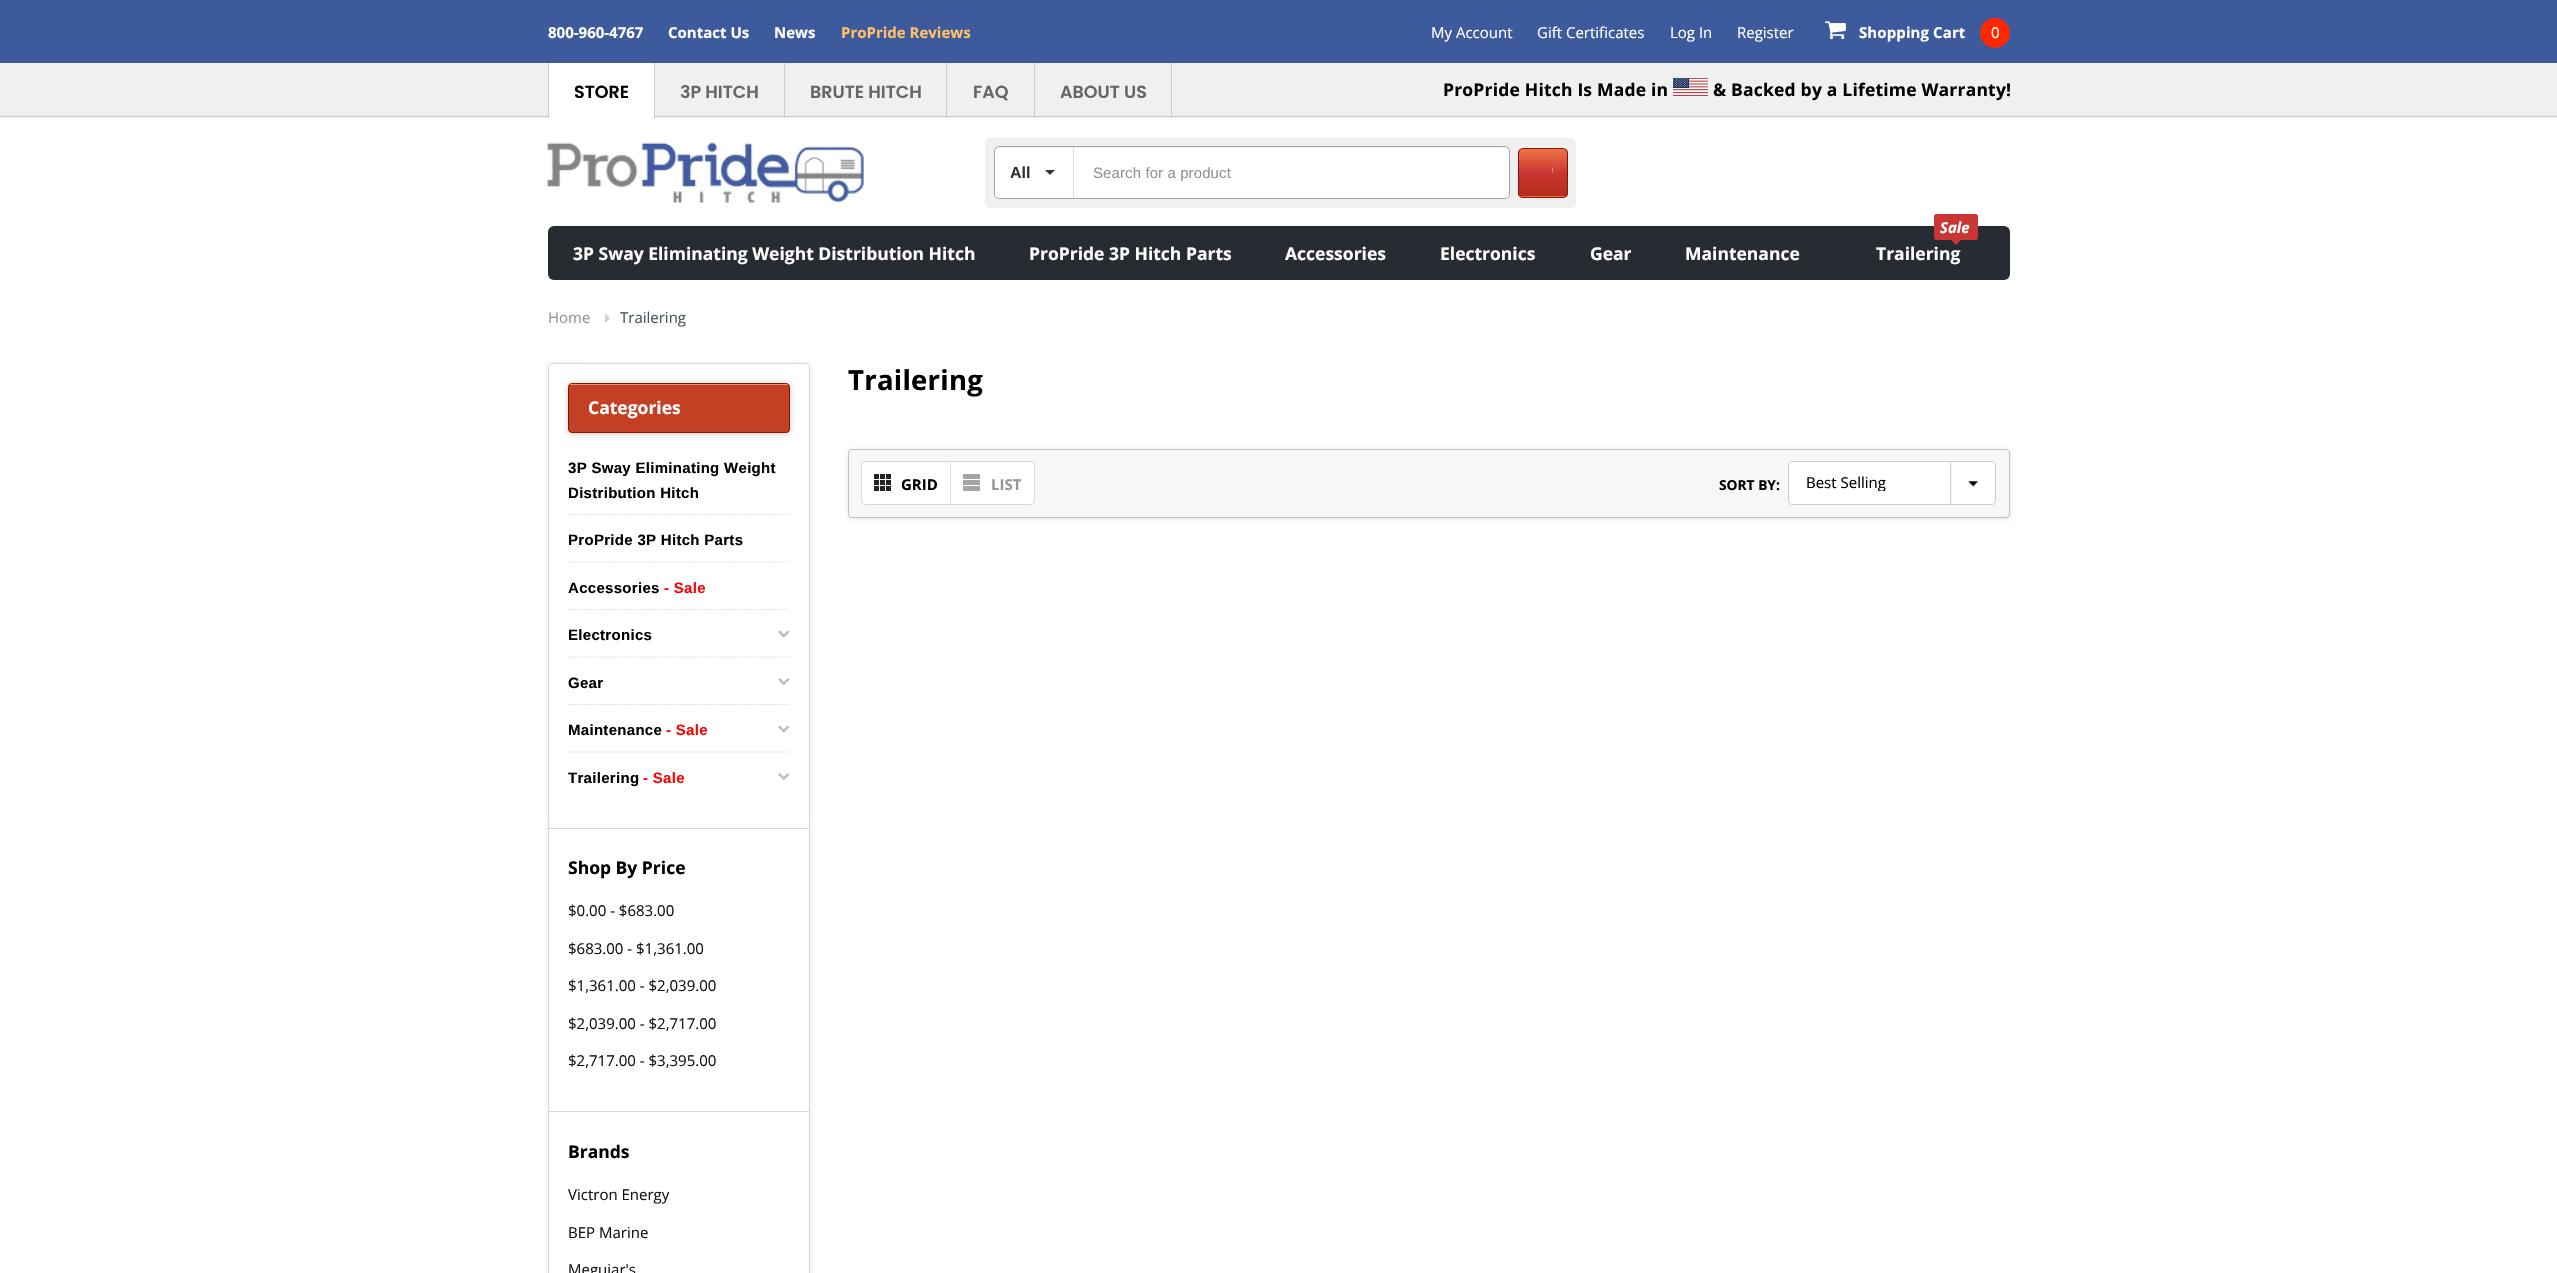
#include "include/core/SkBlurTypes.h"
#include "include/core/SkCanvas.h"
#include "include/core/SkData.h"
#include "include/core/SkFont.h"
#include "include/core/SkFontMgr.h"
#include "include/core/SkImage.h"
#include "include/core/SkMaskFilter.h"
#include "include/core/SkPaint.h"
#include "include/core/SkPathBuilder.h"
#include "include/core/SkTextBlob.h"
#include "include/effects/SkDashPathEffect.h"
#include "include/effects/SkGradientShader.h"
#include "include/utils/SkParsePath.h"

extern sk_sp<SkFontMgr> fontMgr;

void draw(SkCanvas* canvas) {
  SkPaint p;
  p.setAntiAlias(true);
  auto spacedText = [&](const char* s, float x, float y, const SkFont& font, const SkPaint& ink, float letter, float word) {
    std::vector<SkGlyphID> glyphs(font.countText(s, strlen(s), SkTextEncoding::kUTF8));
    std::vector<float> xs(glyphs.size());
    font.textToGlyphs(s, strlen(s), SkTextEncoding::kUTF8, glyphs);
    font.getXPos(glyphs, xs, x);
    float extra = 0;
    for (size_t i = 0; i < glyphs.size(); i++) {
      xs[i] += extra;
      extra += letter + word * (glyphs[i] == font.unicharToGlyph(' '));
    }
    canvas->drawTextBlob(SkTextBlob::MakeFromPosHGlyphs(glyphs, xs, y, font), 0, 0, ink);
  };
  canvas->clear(SK_ColorWHITE);
  p.setColor(SkColorSetRGB(61, 90, 156));
  canvas->drawRect(SkRect::MakeLTRB(0, 0, 2557, 63), p);
  canvas->drawImageRect(SkImages::DeferredFromEncodedData(SkData::MakeFromFileName("images/1.png")), SkRect::MakeLTRB(1825, 21, 1846, 40), SkSamplingOptions());
  p.setColor(SkColorSetRGB(255, 40, 0));
  canvas->drawCircle(1995, 33, 15, p);
  p.setColor(SkColorSetRGB(240, 240, 240));
  canvas->drawRect(SkRect::MakeLTRB(0, 63, 2557, 118), p);
  p.setColor(SkColorSetRGB(204, 204, 204));
  canvas->drawRect(SkRect::MakeLTRB(654, 63, 655, 118), p);
  canvas->drawRect(SkRect::MakeLTRB(784, 63, 785, 118), p);
  canvas->drawRect(SkRect::MakeLTRB(946, 63, 947, 118), p);
  canvas->drawRect(SkRect::MakeLTRB(1171, 63, 1172, 118), p);
  canvas->drawRect(SkRect::MakeLTRB(1034, 63, 1035, 118), p);
  canvas->drawRect(SkRect::MakeLTRB(0, 116, 2557, 117), p);
  p.setColor(SK_ColorWHITE);
  canvas->drawRect(SkRect::MakeLTRB(549, 63, 654, 118), p);
  p.setColor(SkColorSetRGB(204, 204, 204));
  canvas->drawRect(SkRect::MakeLTRB(548, 63, 549, 118), p);
  canvas->drawImageRect(SkImages::DeferredFromEncodedData(SkData::MakeFromFileName("images/2.png")), SkRect::MakeLTRB(1673, 78, 1708, 96), SkSamplingOptions());
  canvas->drawImageRect(SkImages::DeferredFromEncodedData(SkData::MakeFromFileName("images/3.png")), SkRect::MakeLTRB(547, 142, 864, 203), SkSamplingOptions());
  p.setColor(SkColorSetRGB(240, 240, 240));
  canvas->drawRoundRect(SkRect::MakeLTRB(985, 138, 1576, 208), 5, 5, p);
  p.setStyle(SkPaint::kStroke_Style);
  p.setStrokeWidth(1);
  p.setColor(SkColorSetRGB(165, 165, 165));
  canvas->drawRoundRect(SkRect::MakeLTRB(994.5f, 146.5f, 1509.5f, 198.5f), 4.5f, 4.5f, p);
  p.setStyle(SkPaint::kFill_Style);
  p.setColor(SK_ColorWHITE);
  canvas->drawPath(SkPathBuilder().moveTo(1000, 148).lineTo(1074, 148).lineTo(1074, 198).lineTo(1000, 198).cubicTo(997, 198, 995, 196, 995, 193).lineTo(995, 153).cubicTo(995, 150, 997, 148, 1000, 148).close().detach(), p);
  p.setColor(SkColorSetRGB(217, 217, 217));
  canvas->drawRect(SkRect::MakeLTRB(1073, 148, 1074, 198), p);
  p.setColor(SkColorSetRGB(51, 51, 51));
  canvas->drawPath(SkPathBuilder().moveTo(1045, 170).lineTo(1055, 170).lineTo(1050, 175).close().detach(), p);
  p.setColor(SK_ColorWHITE);
  canvas->drawPath(SkPathBuilder().moveTo(1074, 148).lineTo(1504, 148).cubicTo(1507, 148, 1509, 150, 1509, 153).lineTo(1509, 193).cubicTo(1509, 196, 1507, 198, 1504, 198).lineTo(1074, 198).close().detach(), p);
  canvas->save();
  canvas->clipPath(SkPathBuilder().moveTo(1523, 148).lineTo(1563, 148).cubicTo(1566, 148, 1568, 150, 1568, 153).lineTo(1568, 193).cubicTo(1568, 196, 1566, 198, 1563, 198).lineTo(1523, 198).cubicTo(1520, 198, 1518, 196, 1518, 193).lineTo(1518, 153).cubicTo(1518, 150, 1520, 148, 1523, 148).close().detach(), true);
  {
    const SkColor colors[] = {SkColorSetRGB(238, 116, 70), SkColorSetRGB(201, 54, 51), SkColorSetRGB(182, 46, 25)};
    const float stops[] = {0, 0.51f, 1};
    const SkPoint ends[] = {{1543, 149}, {1543, 196}};
    p.setShader(SkGradientShader::MakeLinear(ends, colors, stops, 3, SkTileMode::kClamp));
    p.setAlpha(255);
  }
  canvas->drawRect(SkRect::MakeLTRB(1518, 149, 1568, 196), p);
  {
    const SkColor colors[] = {SkColorSetRGB(238, 116, 70), SkColorSetRGB(201, 54, 51), SkColorSetRGB(182, 46, 25)};
    const float stops[] = {0, 0.51f, 1};
    const SkPoint ends[] = {{1543, 196}, {1543, 244}};
    p.setShader(SkGradientShader::MakeLinear(ends, colors, stops, 3, SkTileMode::kClamp));
    p.setAlpha(255);
  }
  canvas->drawRect(SkRect::MakeLTRB(1518, 196, 1568, 198), p);
  canvas->restore();
  p.setStyle(SkPaint::kStroke_Style);
  p.setShader(nullptr);
  p.setColor(SkColorSetRGB(138, 19, 3));
  canvas->drawRoundRect(SkRect::MakeLTRB(1518.5f, 148.5f, 1567.5f, 197.5f), 4.5f, 4.5f, p);
  canvas->drawImageRect(SkImages::DeferredFromEncodedData(SkData::MakeFromFileName("images/4.png")), SkRect::MakeLTRB(1552, 167, 1553, 173), SkSamplingOptions());
  p.setStyle(SkPaint::kFill_Style);
  p.setColor(SkColorSetRGB(39, 43, 50));
  canvas->drawRoundRect(SkRect::MakeLTRB(548, 226, 2010, 280), 6, 6, p);
  p.setColor(SkColorSetRGB(201, 54, 51));
  canvas->drawRoundRect(SkRect::MakeLTRB(1934, 214, 1978, 240), 2.5f, 2.5f, p);
  canvas->drawPath(SkPathBuilder().moveTo(1951, 240).lineTo(1961, 240).lineTo(1956, 245).close().detach(), p);
  canvas->drawImageRect(SkImages::DeferredFromEncodedData(SkData::MakeFromFileName("images/5.png")), SkRect::MakeLTRB(605, 314, 610, 323), SkSamplingOptions());
  canvas->save();
  canvas->clipPath(SkPathBuilder(SkPathFillType::kEvenOdd).moveTo(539, 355).lineTo(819, 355).lineTo(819, 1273).lineTo(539, 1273).close().moveTo(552, 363).lineTo(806, 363).cubicTo(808, 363, 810, 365, 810, 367).lineTo(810, 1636).cubicTo(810, 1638, 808, 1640, 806, 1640).lineTo(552, 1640).cubicTo(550, 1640, 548, 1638, 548, 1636).lineTo(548, 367).cubicTo(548, 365, 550, 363, 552, 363).close().detach(), true);
  p.setColor(SkColorSetARGB(26, 0, 0, 0));
  p.setMaskFilter(SkMaskFilter::MakeBlur(kNormal_SkBlurStyle, 2.5f));
  canvas->drawRoundRect(SkRect::MakeLTRB(548, 364, 810, 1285), 4, 4, p);
  p.setMaskFilter(nullptr);
  canvas->restore();
  p.setStyle(SkPaint::kStroke_Style);
  p.setColor(SkColorSetRGB(215, 215, 215));
  canvas->drawRoundRect(SkRect::MakeLTRB(548.5f, 363.5f, 809.5f, 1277.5f), 3.5f, 3.5f, p);
  p.setStyle(SkPaint::kFill_Style);
  canvas->drawRect(SkRect::MakeLTRB(549, 828, 809, 829), p);
  p.setColor(SkColorSetARGB(51, 0, 0, 0));
  p.setMaskFilter(SkMaskFilter::MakeBlur(kNormal_SkBlurStyle, 3));
  canvas->drawRoundRect(SkRect::MakeLTRB(568, 384, 790, 434), 4, 4, p);
  p.setMaskFilter(nullptr);
  p.setColor(SkColorSetRGB(196, 64, 37));
  canvas->drawRoundRect(SkRect::MakeLTRB(568.5f, 383.5f, 789.5f, 432.5f), 3.5f, 3.5f, p);
  p.setStyle(SkPaint::kStroke_Style);
  p.setColor(SkColorSetRGB(138, 19, 3));
  canvas->drawRoundRect(SkRect::MakeLTRB(568.5f, 383.5f, 789.5f, 432.5f), 3.5f, 3.5f, p);
  canvas->save();
  canvas->clipPath(SkPathBuilder().moveTo(571.5f, 384).lineTo(786.5f, 384).cubicTo(788, 384, 789, 385, 789, 386.5f).lineTo(789, 428.5f).cubicTo(789, 430, 788, 431, 786.5f, 431).lineTo(571.5f, 431).cubicTo(570, 431, 569, 430, 569, 428.5f).lineTo(569, 386.5f).cubicTo(569, 385, 570, 384, 571.5f, 384).close().detach(), true);
  p.setStyle(SkPaint::kFill_Style);
  p.setColor(SkColorSetRGB(231, 147, 129));
  canvas->drawRect(SkRect::MakeLTRB(569, 384, 789, 385), p);
  canvas->restore();
  p.setStyle(SkPaint::kStroke_Style);
  p.setStrokeWidth(1.2f);
  p.setColor(SkColorSetRGB(215, 215, 215));
  p.setPathEffect(SkDashPathEffect::Make({{1.25f, 1.25f}}, 0));
  canvas->drawPath(SkPathBuilder().moveTo(567.5f, 514.5f).lineTo(790, 514.5f).detach(), p);
  p.setPathEffect(nullptr);
  p.setPathEffect(SkDashPathEffect::Make({{1.25f, 1.25f}}, 0));
  canvas->drawPath(SkPathBuilder().moveTo(567.5f, 562).lineTo(790, 562).detach(), p);
  p.setPathEffect(nullptr);
  p.setPathEffect(SkDashPathEffect::Make({{1.25f, 1.25f}}, 0));
  canvas->drawPath(SkPathBuilder().moveTo(567.5f, 609.5f).lineTo(790, 609.5f).detach(), p);
  p.setPathEffect(nullptr);
  canvas->drawImageRect(SkImages::DeferredFromEncodedData(SkData::MakeFromFileName("images/6.png")), SkRect::MakeLTRB(778, 630, 790, 638), SkSamplingOptions());
  p.setPathEffect(SkDashPathEffect::Make({{1.25f, 1.25f}}, 0));
  canvas->drawPath(SkPathBuilder().moveTo(567.5f, 657).lineTo(790, 657).detach(), p);
  p.setPathEffect(nullptr);
  canvas->drawImageRect(SkImages::DeferredFromEncodedData(SkData::MakeFromFileName("images/7.png")), SkRect::MakeLTRB(778, 678, 790, 686), SkSamplingOptions());
  p.setPathEffect(SkDashPathEffect::Make({{1.25f, 1.25f}}, 0));
  canvas->drawPath(SkPathBuilder().moveTo(567.5f, 704.5f).lineTo(790, 704.5f).detach(), p);
  p.setPathEffect(nullptr);
  canvas->drawImageRect(SkImages::DeferredFromEncodedData(SkData::MakeFromFileName("images/6.png")), SkRect::MakeLTRB(778, 725, 790, 733), SkSamplingOptions());
  p.setPathEffect(SkDashPathEffect::Make({{1.25f, 1.25f}}, 0));
  canvas->drawPath(SkPathBuilder().moveTo(567.5f, 752).lineTo(790, 752).detach(), p);
  p.setPathEffect(nullptr);
  canvas->drawImageRect(SkImages::DeferredFromEncodedData(SkData::MakeFromFileName("images/7.png")), SkRect::MakeLTRB(778, 773, 790, 781), SkSamplingOptions());
  p.setStyle(SkPaint::kFill_Style);
  canvas->drawRect(SkRect::MakeLTRB(549, 1111, 809, 1112), p);
  p.setColor(SkColorSetARGB(26, 0, 0, 0));
  p.setMaskFilter(SkMaskFilter::MakeBlur(kNormal_SkBlurStyle, 2.5f));
  canvas->drawRoundRect(SkRect::MakeLTRB(848, 450, 2010, 519), 4, 4, p);
  p.setMaskFilter(nullptr);
  p.setColor(SkColorSetRGB(247, 247, 247));
  canvas->drawRoundRect(SkRect::MakeLTRB(848.5f, 449.5f, 2009.5f, 517.5f), 3.5f, 3.5f, p);
  p.setStyle(SkPaint::kStroke_Style);
  p.setStrokeWidth(1);
  p.setColor(SkColorSetRGB(193, 193, 193));
  canvas->drawRoundRect(SkRect::MakeLTRB(848.5f, 449.5f, 2009.5f, 517.5f), 3.5f, 3.5f, p);
  p.setStyle(SkPaint::kFill_Style);
  p.setColor(SK_ColorWHITE);
  canvas->drawRoundRect(SkRect::MakeLTRB(861.5f, 461.5f, 1034.5f, 504.5f), 3.5f, 3.5f, p);
  p.setStyle(SkPaint::kStroke_Style);
  p.setColor(SkColorSetRGB(215, 215, 215));
  canvas->drawRoundRect(SkRect::MakeLTRB(861.5f, 461.5f, 1034.5f, 504.5f), 3.5f, 3.5f, p);
  p.setStyle(SkPaint::kFill_Style);
  canvas->drawRect(SkRect::MakeLTRB(950, 463, 951, 504), p);
  p.setColor(SkColorSetRGB(35, 35, 35));
  canvas->drawRect(SkRect::MakeLTRB(880, 474, 885, 479), p);
  canvas->drawRect(SkRect::MakeLTRB(874, 474, 879, 479), p);
  canvas->drawRect(SkRect::MakeLTRB(886, 474, 891, 479), p);
  canvas->drawRect(SkRect::MakeLTRB(880, 480, 885, 485), p);
  canvas->drawRect(SkRect::MakeLTRB(874, 480, 879, 485), p);
  canvas->drawRect(SkRect::MakeLTRB(886, 480, 891, 485), p);
  canvas->drawRect(SkRect::MakeLTRB(880, 486, 885, 491), p);
  canvas->drawRect(SkRect::MakeLTRB(874, 486, 879, 491), p);
  canvas->drawRect(SkRect::MakeLTRB(886, 486, 891, 491), p);
  p.setColor(SkColorSetRGB(165, 165, 165));
  canvas->drawRect(SkRect::MakeLTRB(963, 474, 980, 479), p);
  canvas->drawRect(SkRect::MakeLTRB(963, 480, 980, 485), p);
  canvas->drawRect(SkRect::MakeLTRB(963, 486, 980, 491), p);
  p.setColor(SK_ColorWHITE);
  canvas->drawRoundRect(SkRect::MakeLTRB(1788, 461, 1996, 505), 4, 4, p);
  canvas->drawImageRect(SkImages::DeferredFromEncodedData(SkData::MakeFromFileName("images/8.png")), SkRect::MakeLTRB(1950, 462, 1978, 504), SkSamplingOptions());
  p.setStyle(SkPaint::kStroke_Style);
  p.setColor(SkColorSetRGB(204, 204, 204));
  canvas->drawRoundRect(SkRect::MakeLTRB(1788.5f, 461.5f, 1995.5f, 504.5f), 3.5f, 3.5f, p);
  SkFont font1(fontMgr->matchFamilyStyle("Open Sans", SkFontStyle::Bold()), 15);
  font1.setSubpixel(true);
  p.setStyle(SkPaint::kFill_Style);
  p.setColor(SK_ColorWHITE);
  canvas->drawString("800-960-4767", 548, 38, font1, p);
  canvas->drawString("Contact Us", 668, 38, font1, p);
  canvas->drawString("News", 774, 38, font1, p);
  p.setColor(SkColorSetRGB(255, 192, 104));
  canvas->drawString("ProPride Reviews", 841, 38, font1, p);
  SkFont font2(fontMgr->matchFamilyStyle("Open Sans", SkFontStyle::Normal()), 15);
  font2.setSubpixel(true);
  p.setColor(SK_ColorWHITE);
  canvas->drawString("My Account", 1431, 38, font2, p);
  canvas->drawString("Gift Certificates", 1537, 38, font2, p);
  canvas->drawString("Log In", 1670, 38, font2, p);
  canvas->drawString("Register", 1737, 38, font2, p);
  spacedText("Shopping Cart", 1859, 38, font1, p, 0.1f, 0);
  canvas->drawString("0", 1991, 38, font2, p);
  SkFont font3(fontMgr->matchFamilyStyle("Poppins", SkFontStyle(600, SkFontStyle::kNormal_Width, SkFontStyle::kUpright_Slant)), 17.5f);
  font3.setSubpixel(true);
  p.setColor(SK_ColorBLACK);
  canvas->drawString("STORE", 574, 98, font3, p);
  p.setColor(SkColorSetRGB(102, 102, 102));
  canvas->drawString("3P HITCH", 680, 98, font3, p);
  canvas->drawString("BRUTE HITCH", 810, 98, font3, p);
  canvas->drawString("FAQ", 973, 98, font3, p);
  canvas->drawString("ABOUT US", 1060, 98, font3, p);
  SkFont font4(fontMgr->matchFamilyStyle("Open Sans", SkFontStyle::Bold()), 17.5f);
  font4.setSubpixel(true);
  p.setColor(SK_ColorBLACK);
  spacedText("ProPride Hitch Is Made in", 1443, 96, font4, p, 0.2f, 0);
  spacedText("& Backed by a Lifetime Warranty!", 1713, 96, font4, p, 0.2f, 0);
  SkFont font5(fontMgr->matchFamilyStyle("Arimo", SkFontStyle::Bold()), 16);
  font5.setSubpixel(true);
  p.setColor(SkColorSetRGB(51, 51, 51));
  canvas->drawString("All", 1010, 178, font5, p);
  SkFont font6(fontMgr->matchFamilyStyle("Arimo", SkFontStyle::Normal()), 15);
  font6.setSubpixel(true);
  p.setColor(SkColorSetRGB(148, 148, 148));
  spacedText("Search for a product", 1093, 178, font6, p, 0.1f, 0);
  p.setColor(SK_ColorWHITE);
  canvas->drawString("3P Sway Eliminating Weight Distribution Hitch", 573, 260, font4, p);
  canvas->drawString("ProPride 3P Hitch Parts", 1029, 260, font4, p);
  canvas->drawString("Accessories", 1285, 260, font4, p);
  canvas->drawString("Electronics", 1440, 260, font4, p);
  canvas->drawString("Gear", 1590, 260, font4, p);
  canvas->drawString("Maintenance", 1685, 260, font4, p);
  SkFont font7(fontMgr->matchFamilyStyle("Open Sans", SkFontStyle::BoldItalic()), 15);
  font7.setSubpixel(true);
  canvas->drawString("Sale", 1940, 233, font7, p);
  canvas->drawString("Trailering", 1876, 260, font4, p);
  p.setColor(SkColorSetRGB(148, 148, 148));
  canvas->drawString("Home", 548, 323, font2, p);
  p.setColor(SkColorSetRGB(75, 84, 89));
  canvas->drawString("Trailering", 620, 323, font2, p);
  p.setColor(SK_ColorWHITE);
  canvas->drawString("Categories", 588, 414, font4, p);
  SkFont font8(fontMgr->matchFamilyStyle("Arimo", SkFontStyle::Bold()), 15);
  font8.setSubpixel(true);
  p.setColor(SK_ColorBLACK);
  spacedText("3P Sway Eliminating Weight", 568, 473, font8, p, 0.3f, 0);
  spacedText("Distribution Hitch", 568, 498, font8, p, 0.3f, 0);
  spacedText("ProPride 3P Hitch Parts", 568, 545, font8, p, 0.3f, 0);
  spacedText("Accessories", 568, 593, font8, p, 0.3f, 0);
  p.setColor(SkColorSetRGB(255, 0, 0));
  spacedText("- Sale", 664, 593, font8, p, 0.3f, 0);
  p.setColor(SK_ColorBLACK);
  spacedText("Electronics", 568, 640, font8, p, 0.3f, 0);
  spacedText("Gear", 568, 688, font8, p, 0.3f, 0);
  spacedText("Maintenance", 568, 735, font8, p, 0.3f, 0);
  p.setColor(SkColorSetRGB(255, 0, 0));
  spacedText("- Sale", 666, 735, font8, p, 0.3f, 0);
  p.setColor(SK_ColorBLACK);
  spacedText("Trailering", 568, 783, font8, p, 0.3f, 0);
  p.setColor(SkColorSetRGB(255, 0, 0));
  spacedText("- Sale", 643, 783, font8, p, 0.3f, 0);
  p.setColor(SK_ColorBLACK);
  canvas->drawString("Shop By Price", 568, 874, font4, p);
  p.setColor(SkColorSetRGB(19, 19, 19));
  canvas->drawString("$0.00 - $683.00", 568, 916, font2, p);
  canvas->drawString("$683.00 - $1,361.00", 568, 954, font2, p);
  canvas->drawString("$1,361.00 - $2,039.00", 568, 991, font2, p);
  canvas->drawString("$2,039.00 - $2,717.00", 568, 1029, font2, p);
  canvas->drawString("$2,717.00 - $3,395.00", 568, 1066, font2, p);
  p.setColor(SK_ColorBLACK);
  canvas->drawString("Brands", 568, 1158, font4, p);
  p.setColor(SkColorSetRGB(19, 19, 19));
  canvas->drawString("Victron Energy", 568, 1200, font2, p);
  canvas->drawString("BEP Marine", 568, 1238, font2, p);
  canvas->drawString("Meguiar's", 568, 1275, font2, p);
  SkFont font9(fontMgr->matchFamilyStyle("Open Sans", SkFontStyle::Bold()), 27.5f);
  font9.setSubpixel(true);
  p.setColor(SK_ColorBLACK);
  spacedText("Trailering", 848, 390, font9, p, 0.25f, 0);
  canvas->drawString("GRID", 901, 490, font1, p);
  p.setColor(SkColorSetRGB(148, 148, 148));
  canvas->drawString("LIST", 991, 490, font1, p);
  SkFont font10(fontMgr->matchFamilyStyle("Open Sans", SkFontStyle::Bold()), 13.75f);
  font10.setSubpixel(true);
  p.setColor(SK_ColorBLACK);
  canvas->drawString("SORT BY:", 1719, 490, font10, p);
  canvas->save();
  canvas->clipRect(SkRect::MakeLTRB(1806, 476, 1978, 491));
  canvas->drawString("Best Selling", 1806, 488, font2, p);
  canvas->restore();
}
